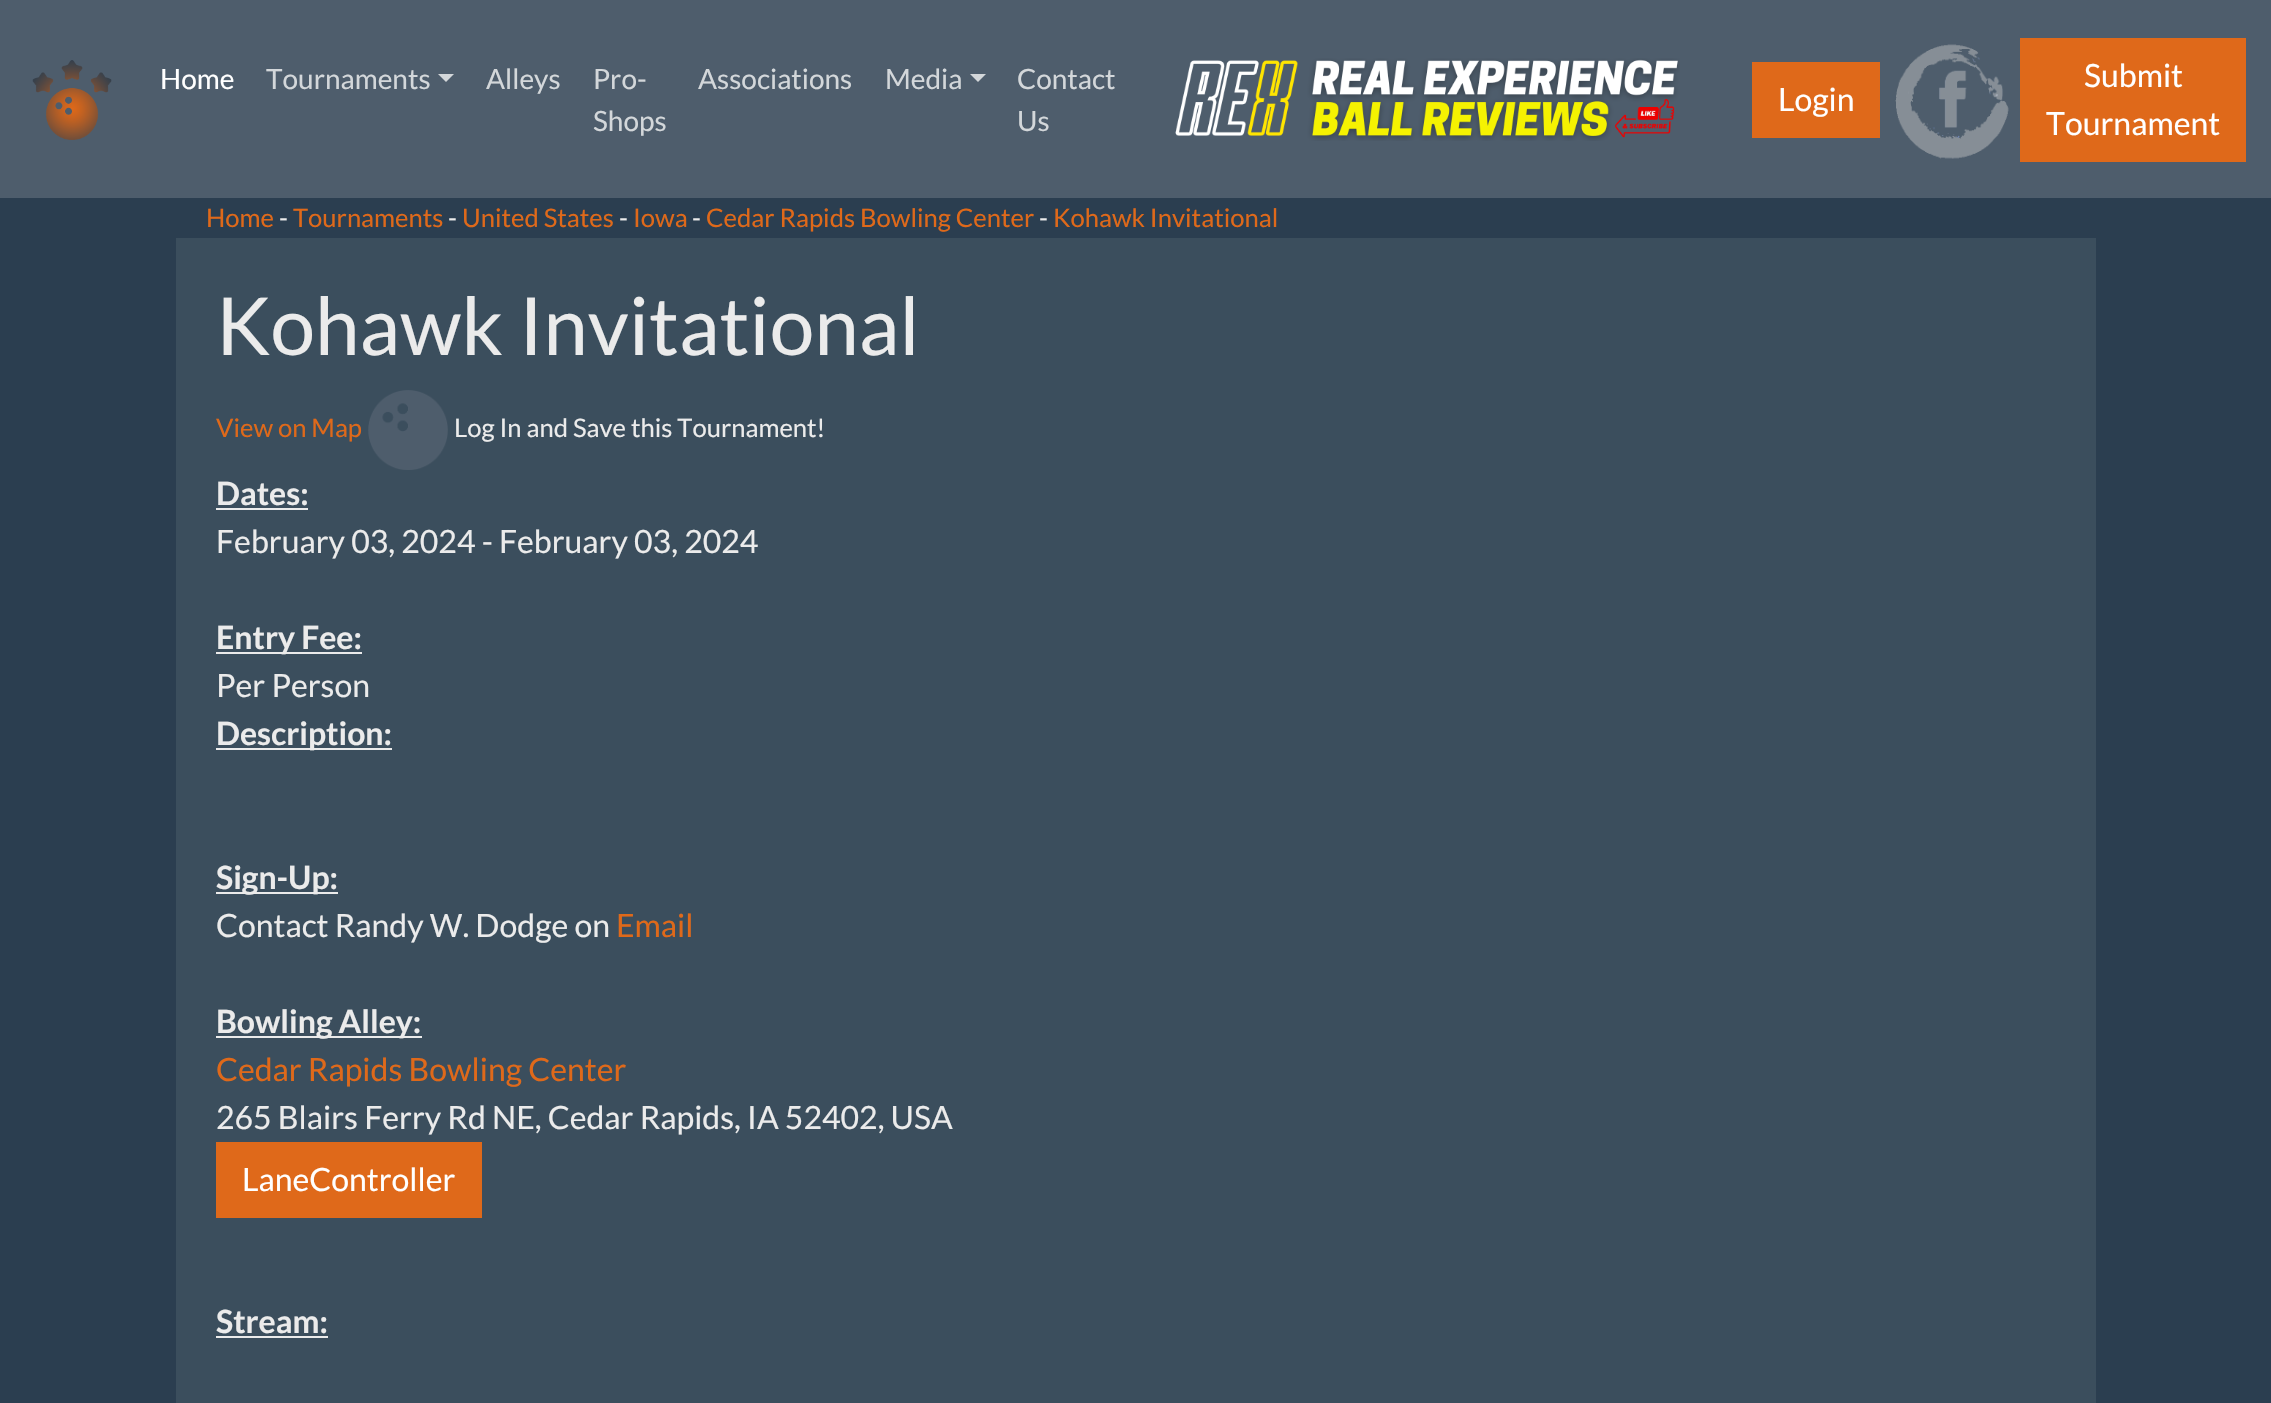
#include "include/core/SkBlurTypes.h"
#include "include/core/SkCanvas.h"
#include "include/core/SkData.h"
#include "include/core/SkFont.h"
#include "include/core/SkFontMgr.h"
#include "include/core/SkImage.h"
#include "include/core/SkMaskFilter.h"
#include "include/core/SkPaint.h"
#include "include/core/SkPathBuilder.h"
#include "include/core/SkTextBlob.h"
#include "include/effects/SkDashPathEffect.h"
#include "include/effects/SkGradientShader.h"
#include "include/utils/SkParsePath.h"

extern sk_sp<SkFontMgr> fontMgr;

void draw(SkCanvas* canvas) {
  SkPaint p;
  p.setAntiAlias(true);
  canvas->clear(SkColorSetRGB(43, 62, 80));
  p.setColor(SkColorSetRGB(78, 93, 108));
  canvas->drawRect(SkRect::MakeLTRB(0, 0, 2271, 198), p);
  canvas->drawImageRect(SkImages::DeferredFromEncodedData(SkData::MakeFromFileName("images/1.png")), SkRect::MakeLTRB(32, 60, 112, 140), SkSamplingOptions());
  p.setColor(SkColorSetRGB(211, 215, 218));
  canvas->drawPath(SkPathBuilder().moveTo(438, 74).lineTo(454, 74).lineTo(446, 82).close().detach(), p);
  canvas->drawPath(SkPathBuilder().moveTo(970, 74).lineTo(986, 74).lineTo(978, 82).close().detach(), p);
  canvas->drawImageRect(SkImages::DeferredFromEncodedData(SkData::MakeFromFileName("images/2.png")), SkRect::MakeLTRB(1175, 58, 1680, 141), SkSamplingOptions());
  p.setColor(SkColorSetRGB(223, 105, 26));
  canvas->drawRect(SkRect::MakeLTRB(1752, 62, 1880, 138), p);
  canvas->drawImageRect(SkImages::DeferredFromEncodedData(SkData::MakeFromFileName("images/3.png")), SkRect::MakeLTRB(1895, 44, 2009, 159), SkSamplingOptions());
  canvas->drawRect(SkRect::MakeLTRB(2020, 38, 2246, 162), p);
  p.setColor(SkColorSetRGB(59, 78, 93));
  canvas->drawRect(SkRect::MakeLTRB(176, 238, 2096, 1403), p);
  canvas->drawImageRect(SkImages::DeferredFromEncodedData(SkData::MakeFromFileName("images/4.png")), SkRect::MakeLTRB(368, 390, 448, 470), SkSamplingOptions());
  p.setColor(SkColorSetRGB(235, 235, 235));
  canvas->drawRect(SkRect::MakeLTRB(216, 508, 308, 510), p);
  canvas->drawRect(SkRect::MakeLTRB(216, 652, 362, 654), p);
  canvas->drawRect(SkRect::MakeLTRB(216, 748, 392, 750), p);
  canvas->drawRect(SkRect::MakeLTRB(216, 892, 338, 894), p);
  canvas->drawRect(SkRect::MakeLTRB(216, 1036, 422, 1038), p);
  p.setColor(SkColorSetRGB(223, 105, 26));
  canvas->drawRect(SkRect::MakeLTRB(216, 1142, 482, 1218), p);
  p.setColor(SkColorSetRGB(235, 235, 235));
  canvas->drawRect(SkRect::MakeLTRB(216, 1336, 328, 1338), p);
  SkFont font1(fontMgr->matchFamilyStyle("Lato", SkFontStyle::Normal()), 28);
  font1.setSubpixel(true);
  p.setColor(SK_ColorWHITE);
  canvas->drawString("Home", 160, 89, font1, p);
  p.setColor(SkColorSetRGB(211, 215, 218));
  canvas->drawString("Tournaments", 266, 89, font1, p);
  canvas->drawString("Alleys", 486, 89, font1, p);
  canvas->drawString("Pro-", 593, 89, font1, p);
  canvas->drawString("Shops", 593, 131, font1, p);
  canvas->drawString("Associations", 698, 89, font1, p);
  canvas->drawString("Media", 885, 89, font1, p);
  canvas->drawString("Contact", 1017, 89, font1, p);
  canvas->drawString("Us", 1017, 131, font1, p);
  SkFont font2(fontMgr->matchFamilyStyle("Lato", SkFontStyle::Normal()), 32);
  font2.setSubpixel(true);
  p.setColor(SK_ColorWHITE);
  canvas->drawString("Login", 1778, 111, font2, p);
  canvas->drawString("Submit", 2084, 87, font2, p);
  canvas->drawString("Tournament", 2046, 135, font2, p);
  SkFont font3(fontMgr->matchFamilyStyle("Lato", SkFontStyle::Normal()), 25.6f);
  font3.setSubpixel(true);
  p.setColor(SkColorSetRGB(223, 105, 26));
  canvas->drawString("Home", 206, 227, font3, p);
  p.setColor(SkColorSetRGB(235, 235, 235));
  canvas->drawString("-", 279, 227, font3, p);
  p.setColor(SkColorSetRGB(223, 105, 26));
  canvas->drawString("Tournaments", 293, 227, font3, p);
  p.setColor(SkColorSetRGB(235, 235, 235));
  canvas->drawString("-", 448, 227, font3, p);
  p.setColor(SkColorSetRGB(223, 105, 26));
  canvas->drawString("United States", 462, 227, font3, p);
  p.setColor(SkColorSetRGB(235, 235, 235));
  canvas->drawString("-", 619, 227, font3, p);
  p.setColor(SkColorSetRGB(223, 105, 26));
  canvas->drawString("Iowa", 633, 227, font3, p);
  p.setColor(SkColorSetRGB(235, 235, 235));
  canvas->drawString("-", 692, 227, font3, p);
  p.setColor(SkColorSetRGB(223, 105, 26));
  canvas->drawString("Cedar Rapids Bowling Center", 706, 227, font3, p);
  p.setColor(SkColorSetRGB(235, 235, 235));
  canvas->drawString("-", 1039, 227, font3, p);
  p.setColor(SkColorSetRGB(223, 105, 26));
  canvas->drawString("Kohawk Invitational", 1053, 227, font3, p);
  SkFont font4(fontMgr->matchFamilyStyle("Lato", SkFontStyle::Normal()), 80);
  font4.setSubpixel(true);
  p.setColor(SkColorSetRGB(235, 235, 235));
  canvas->drawString("Kohawk Invitational", 216, 355, font4, p);
  p.setColor(SkColorSetRGB(223, 105, 26));
  canvas->drawString("View on Map", 216, 437, font3, p);
  p.setColor(SkColorSetRGB(235, 235, 235));
  canvas->drawString("Log In and Save this Tournament!", 454, 437, font3, p);
  SkFont font5(fontMgr->matchFamilyStyle("Lato", SkFontStyle::Bold()), 32);
  font5.setSubpixel(true);
  canvas->drawString("Dates:", 216, 505, font5, p);
  canvas->drawString("February 03, 2024 - February 03, 2024", 216, 553, font2, p);
  canvas->drawString("Entry Fee:", 216, 649, font5, p);
  canvas->drawString("Per Person", 216, 697, font2, p);
  canvas->drawString("Description:", 216, 745, font5, p);
  canvas->drawString("Sign-Up:", 216, 889, font5, p);
  canvas->drawString("Contact Randy W. Dodge on", 216, 937, font2, p);
  p.setColor(SkColorSetRGB(223, 105, 26));
  canvas->drawString("Email", 616, 937, font2, p);
  p.setColor(SkColorSetRGB(235, 235, 235));
  canvas->drawString("Bowling Alley:", 216, 1033, font5, p);
  p.setColor(SkColorSetRGB(223, 105, 26));
  canvas->drawString("Cedar Rapids Bowling Center", 216, 1081, font2, p);
  p.setColor(SkColorSetRGB(235, 235, 235));
  canvas->drawString("265 Blairs Ferry Rd NE, Cedar Rapids, IA 52402, USA", 216, 1129, font2, p);
  p.setColor(SK_ColorWHITE);
  canvas->drawString("LaneController", 242, 1191, font2, p);
  p.setColor(SkColorSetRGB(235, 235, 235));
  canvas->drawString("Stream:", 216, 1333, font5, p);
}
